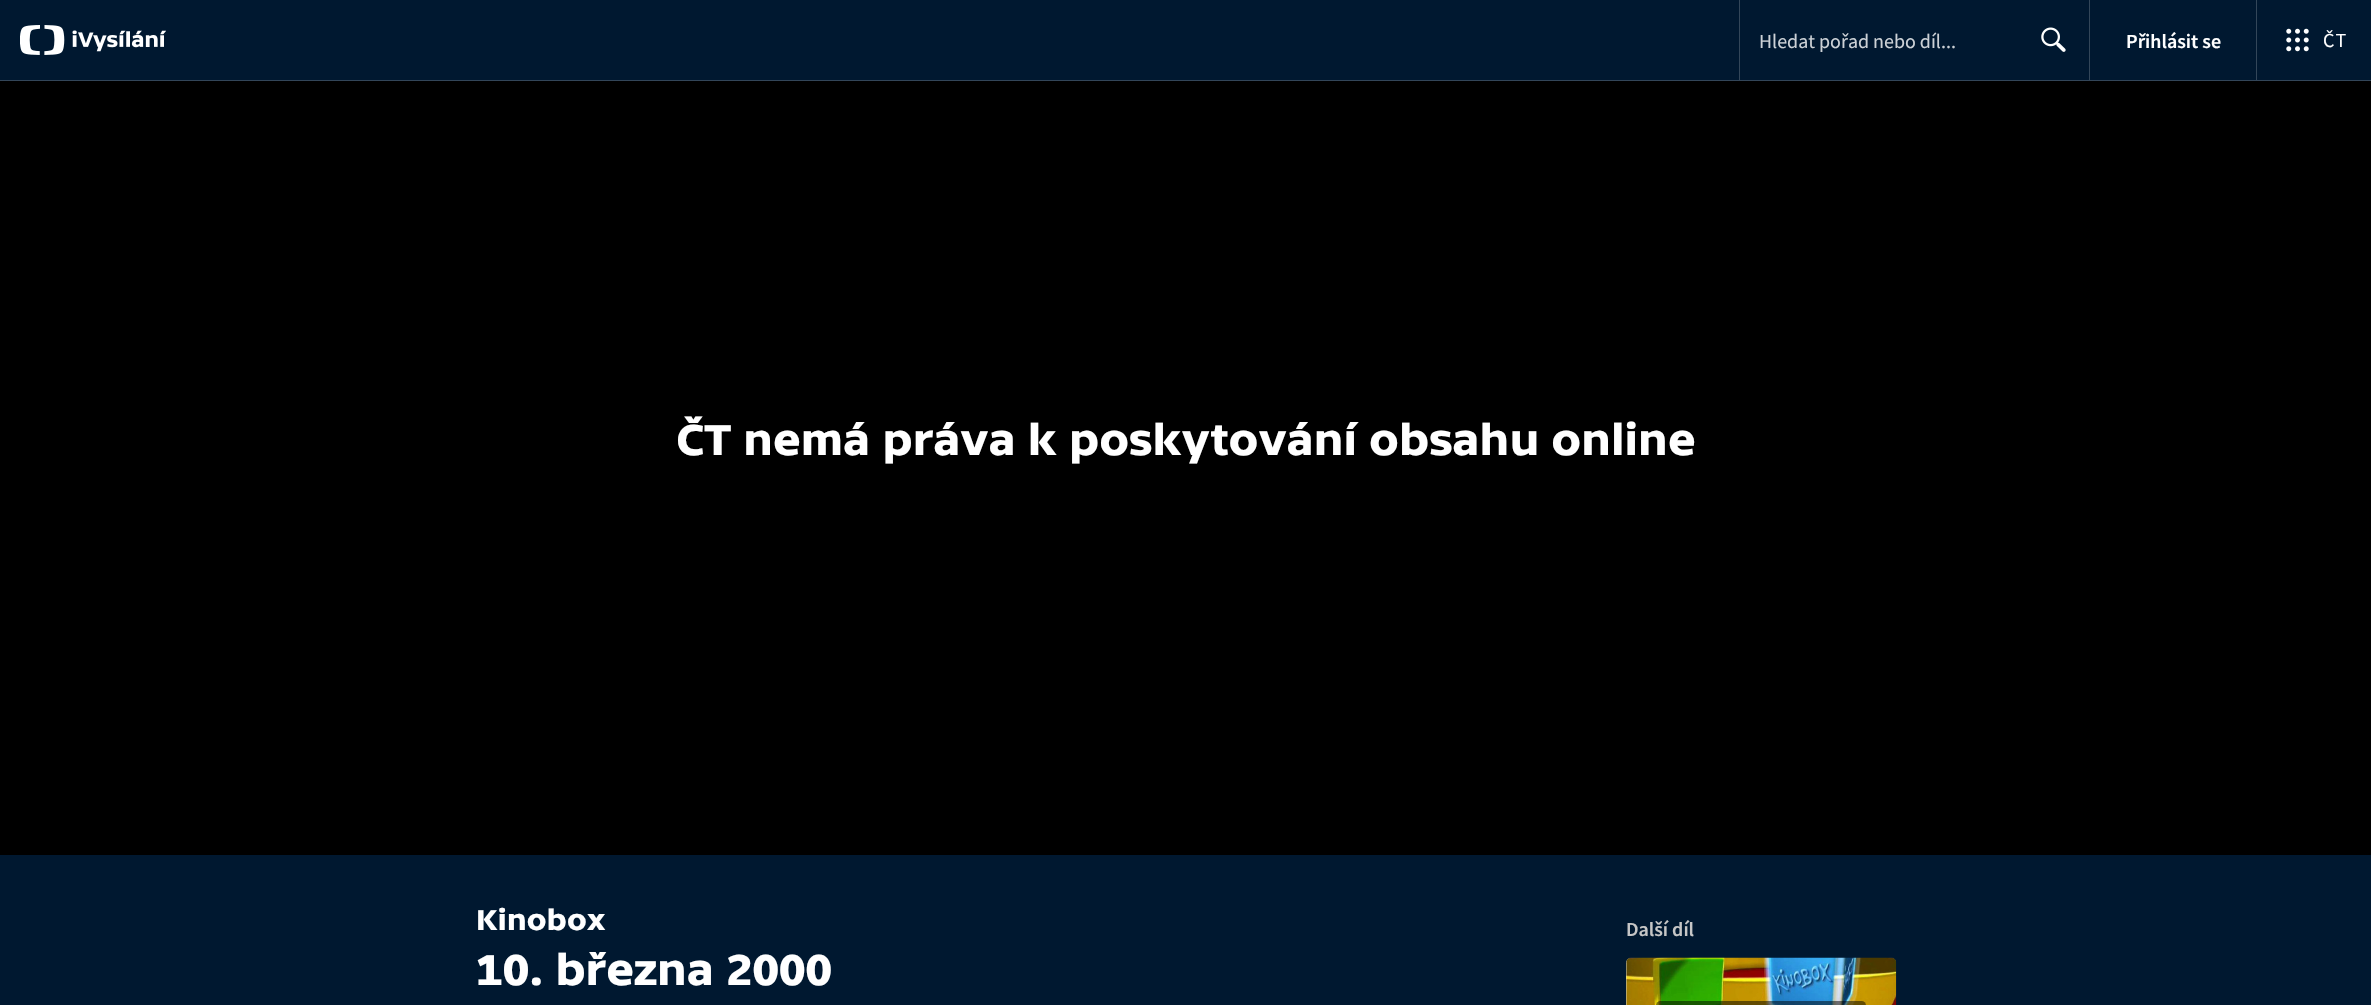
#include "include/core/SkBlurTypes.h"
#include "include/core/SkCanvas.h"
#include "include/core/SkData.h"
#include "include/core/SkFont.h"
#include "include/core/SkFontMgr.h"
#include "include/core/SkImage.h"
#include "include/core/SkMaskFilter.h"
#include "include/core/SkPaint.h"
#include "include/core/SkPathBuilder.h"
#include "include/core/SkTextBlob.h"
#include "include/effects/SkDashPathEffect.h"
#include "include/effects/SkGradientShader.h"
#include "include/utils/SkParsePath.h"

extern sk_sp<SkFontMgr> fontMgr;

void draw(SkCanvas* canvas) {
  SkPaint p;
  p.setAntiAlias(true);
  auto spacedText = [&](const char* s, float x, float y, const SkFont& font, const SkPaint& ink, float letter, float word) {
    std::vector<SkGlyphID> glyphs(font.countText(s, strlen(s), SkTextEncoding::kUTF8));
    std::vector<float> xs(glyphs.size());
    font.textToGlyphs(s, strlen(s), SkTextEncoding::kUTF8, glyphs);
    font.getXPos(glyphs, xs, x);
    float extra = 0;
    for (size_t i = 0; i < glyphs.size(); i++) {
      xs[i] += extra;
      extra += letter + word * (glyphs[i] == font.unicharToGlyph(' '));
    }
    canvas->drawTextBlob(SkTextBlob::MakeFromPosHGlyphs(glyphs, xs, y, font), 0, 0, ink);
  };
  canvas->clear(SkColorSetRGB(0, 24, 48));
  p.setColor(SkColorSetRGB(51, 70, 89));
  canvas->drawRect(SkRect::MakeLTRB(0, 80, 2371, 81), p);
  canvas->drawImageRect(SkImages::DeferredFromEncodedData(SkData::MakeFromFileName("images/1.png")), SkRect::MakeLTRB(20, 25, 166, 55), SkSamplingOptions());
  canvas->drawRect(SkRect::MakeLTRB(1739, 0, 1740, 80), p);
  canvas->drawImageRect(SkImages::DeferredFromEncodedData(SkData::MakeFromFileName("images/2.png")), SkRect::MakeLTRB(2041, 27, 2066, 52), SkSamplingOptions());
  canvas->drawRect(SkRect::MakeLTRB(2089, 0, 2090, 80), p);
  canvas->drawRect(SkRect::MakeLTRB(2256, 0, 2257, 80), p);
  canvas->drawImageRect(SkImages::DeferredFromEncodedData(SkData::MakeFromFileName("images/3.png")), SkRect::MakeLTRB(2286, 28, 2309, 52), SkSamplingOptions());
  p.setColor(SK_ColorBLACK);
  canvas->drawRect(SkRect::MakeLTRB(0, 81, 2371, 855), p);
  p.setColor(SkColorSetRGB(224, 224, 224));
  canvas->drawRoundRect(SkRect::MakeLTRB(1626, 958, 1896, 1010), 5, 5, p);
  canvas->drawImageRect(SkImages::DeferredFromEncodedData(SkData::MakeFromFileName("images/4.png")), SkRect::MakeLTRB(1626, 957, 1897, 1005), SkSamplingOptions());
  p.setColor(SkColorSetARGB(128, 0, 0, 0));
  canvas->drawRoundRect(SkRect::MakeLTRB(1656, 1001, 1866, 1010), 5, 5, p);
  SkFont font1(fontMgr->matchFamilyStyle("Source Sans Pro", SkFontStyle::Normal()), 20);
  font1.setSubpixel(true);
  p.setColor(SkColorSetRGB(204, 209, 214));
  canvas->drawString("Hledat pořad nebo díl...", 1759, 48, font1, p);
  SkFont font2(fontMgr->matchFamilyStyle("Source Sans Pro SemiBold", SkFontStyle(600, SkFontStyle::kNormal_Width, SkFontStyle::kUpright_Slant)), 20);
  font2.setSubpixel(true);
  p.setColor(SK_ColorWHITE);
  canvas->drawString("Přihlásit se", 2126, 48, font2, p);
  spacedText("ČT", 2323, 47, font1, p, 1, 0);
  SkFont font3(fontMgr->matchFamilyStyle("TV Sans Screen", SkFontStyle::Bold()), 45);
  font3.setSubpixel(true);
  spacedText("ČT nemá práva k poskytování obsahu online", 676, 455, font3, p, -0.5f, 0);
  SkFont font4(fontMgr->matchFamilyStyle("TV Sans Screen", SkFontStyle::Bold()), 30);
  font4.setSubpixel(true);
  spacedText("Kinobox", 476, 930, font4, p, -0.25f, 0);
  spacedText("10. března 2000", 476, 985, font3, p, -0.5f, 0);
  p.setColor(SkColorSetRGB(198, 198, 198));
  canvas->drawString("Další díl", 1626, 936, font2, p);
}
